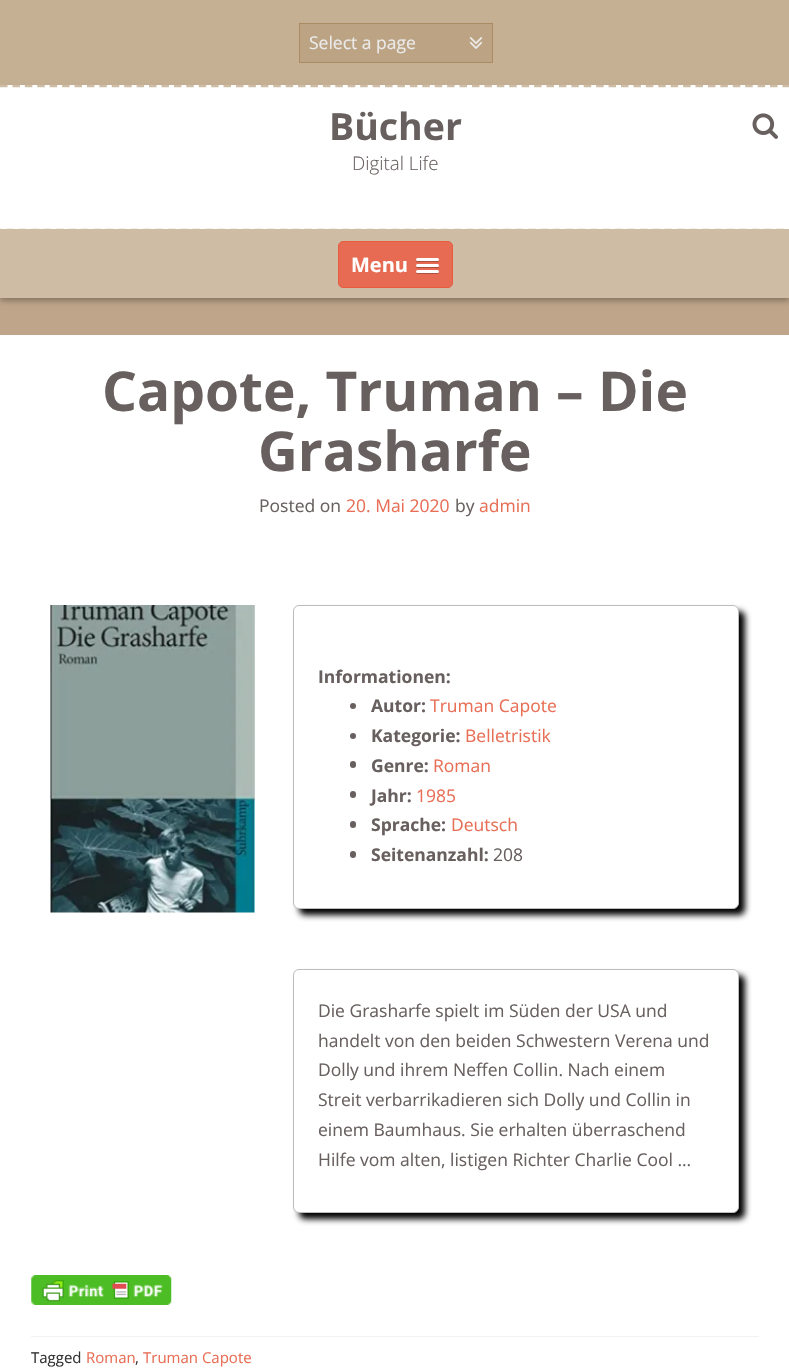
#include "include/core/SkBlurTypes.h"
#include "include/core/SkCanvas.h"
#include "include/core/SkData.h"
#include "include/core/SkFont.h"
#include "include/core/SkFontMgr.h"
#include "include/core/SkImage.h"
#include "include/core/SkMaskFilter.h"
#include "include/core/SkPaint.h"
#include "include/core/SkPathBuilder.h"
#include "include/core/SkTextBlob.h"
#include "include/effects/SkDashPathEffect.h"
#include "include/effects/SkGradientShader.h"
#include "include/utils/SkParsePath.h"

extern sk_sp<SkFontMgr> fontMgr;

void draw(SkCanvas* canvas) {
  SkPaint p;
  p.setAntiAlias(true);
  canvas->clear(SkColorSetRGB(191, 166, 139));
  p.setColor(SkColorSetRGB(197, 176, 148));
  canvas->drawRect(SkRect::MakeLTRB(0, 0, 789, 85), p);
  p.setColor(SkColorSetRGB(188, 163, 132));
  canvas->drawRect(SkRect::MakeLTRB(299.5f, 23.5f, 492.5f, 62.5f), p);
  p.setStyle(SkPaint::kStroke_Style);
  p.setStrokeWidth(1);
  p.setColor(SkColorSetRGB(170, 139, 99));
  canvas->drawRect(SkRect::MakeLTRB(299.5f, 23.5f, 492.5f, 62.5f), p);
  canvas->drawImageRect(SkImages::DeferredFromEncodedData(SkData::MakeFromFileName("images/1.png")), SkRect::MakeLTRB(469, 37, 483, 49), SkSamplingOptions());
  p.setStyle(SkPaint::kFill_Style);
  p.setColor(SkColorSetARGB(77, 0, 0, 0));
  p.setMaskFilter(SkMaskFilter::MakeBlur(kNormal_SkBlurStyle, 3));
  canvas->drawRect(SkRect::MakeLTRB(0, 89, 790, 301), p);
  p.setMaskFilter(nullptr);
  p.setColor(SK_ColorWHITE);
  canvas->drawRect(SkRect::MakeLTRB(0, 85, 789, 229), p);
  p.setStyle(SkPaint::kStroke_Style);
  p.setStrokeWidth(2.5f);
  p.setColor(SkColorSetRGB(206, 188, 165));
  p.setPathEffect(SkDashPathEffect::Make({{7.5f, 4.92f}}, 0));
  canvas->drawPath(SkPathBuilder().moveTo(0, 86).lineTo(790, 86).detach(), p);
  p.setPathEffect(nullptr);
  p.setStyle(SkPaint::kFill_Style);
  canvas->drawRect(SkRect::MakeLTRB(0, 229, 789, 298), p);
  canvas->drawImageRect(SkImages::DeferredFromEncodedData(SkData::MakeFromFileName("images/2.png")), SkRect::MakeLTRB(752, 113, 778, 139), SkSamplingOptions());
  p.setStyle(SkPaint::kStroke_Style);
  p.setPathEffect(SkDashPathEffect::Make({{7.5f, 4.92f}}, 0));
  canvas->drawPath(SkPathBuilder().moveTo(-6, 230).lineTo(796, 230).detach(), p);
  p.setPathEffect(nullptr);
  p.setStyle(SkPaint::kFill_Style);
  p.setColor(SkColorSetRGB(231, 107, 82));
  canvas->drawRoundRect(SkRect::MakeLTRB(338.5f, 241.5f, 452.5f, 287.5f), 4.5f, 4.5f, p);
  p.setStyle(SkPaint::kStroke_Style);
  p.setStrokeWidth(1);
  p.setColor(SkColorSetRGB(229, 92, 64));
  canvas->drawRoundRect(SkRect::MakeLTRB(338.5f, 241.5f, 452.5f, 287.5f), 4.5f, 4.5f, p);
  p.setStyle(SkPaint::kFill_Style);
  p.setColor(SkColorSetRGB(173, 80, 62));
  canvas->drawPath(SkPathBuilder().moveTo(416.5f, 259.5f).lineTo(416, 261).cubicTo(416.5f, 263, 420, 262, 421, 262).lineTo(434, 262).cubicTo(435, 262, 438.5f, 263, 439, 261).lineTo(438.5f, 259.5f).lineTo(437.5f, 260).lineTo(417.5f, 260).close().detach(), p);
  p.setColor(SK_ColorWHITE);
  canvas->drawRoundRect(SkRect::MakeLTRB(416, 258, 439, 261), 1.5f, 1.5f, p);
  p.setColor(SkColorSetRGB(173, 80, 62));
  canvas->drawPath(SkPathBuilder().moveTo(416.5f, 265.5f).lineTo(416, 267).cubicTo(416.5f, 269, 420, 268, 421, 268).lineTo(434, 268).cubicTo(435, 268, 438.5f, 269, 439, 267).lineTo(438.5f, 265.5f).cubicTo(438.5f, 266, 438, 266, 437.5f, 266).lineTo(417.5f, 266).cubicTo(417, 266, 416.5f, 266, 416.5f, 265.5f).close().detach(), p);
  p.setColor(SK_ColorWHITE);
  canvas->drawRoundRect(SkRect::MakeLTRB(416, 264, 439, 267), 1.5f, 1.5f, p);
  p.setColor(SkColorSetRGB(173, 80, 62));
  canvas->drawPath(SkPathBuilder().moveTo(416.5f, 271.5f).cubicTo(414, 274.5f, 420.5f, 274, 421, 274).lineTo(434, 274).cubicTo(434.5f, 274, 441, 274.5f, 438.5f, 271.5f).cubicTo(438.5f, 272, 438, 272.5f, 437.5f, 272.5f).lineTo(417.5f, 272.5f).cubicTo(417, 272.5f, 416.5f, 272, 416.5f, 271.5f).close().detach(), p);
  p.setColor(SK_ColorWHITE);
  canvas->drawRoundRect(SkRect::MakeLTRB(416, 270, 439, 273), 1.5f, 1.5f, p);
  canvas->drawRect(SkRect::MakeLTRB(0, 335, 789, 1371), p);
  canvas->drawImageRect(SkImages::DeferredFromEncodedData(SkData::MakeFromFileName("images/3.png")), SkRect::MakeLTRB(50, 605, 255, 913), SkSamplingOptions());
  p.setColor(SK_ColorBLACK);
  p.setMaskFilter(SkMaskFilter::MakeBlur(kNormal_SkBlurStyle, 3));
  canvas->drawRoundRect(SkRect::MakeLTRB(299, 611, 745, 915), 6, 6, p);
  p.setMaskFilter(nullptr);
  p.setColor(SK_ColorWHITE);
  canvas->drawRoundRect(SkRect::MakeLTRB(293.5f, 605.5f, 738.5f, 908.5f), 5.5f, 5.5f, p);
  p.setStyle(SkPaint::kStroke_Style);
  p.setColor(SkColorSetRGB(189, 189, 189));
  canvas->drawRoundRect(SkRect::MakeLTRB(293.5f, 605.5f, 738.5f, 908.5f), 5.5f, 5.5f, p);
  p.setStyle(SkPaint::kFill_Style);
  p.setColor(SkColorSetRGB(104, 96, 95));
  canvas->drawCircle(353, 706, 3, p);
  canvas->drawCircle(353, 736, 3, p);
  canvas->drawRoundRect(SkRect::MakeLTRB(350, 761, 356, 768), 3, 3, p);
  canvas->drawRoundRect(SkRect::MakeLTRB(350, 791, 356, 798), 3, 3, p);
  canvas->drawRoundRect(SkRect::MakeLTRB(350, 821, 356, 828), 3, 3, p);
  canvas->drawRoundRect(SkRect::MakeLTRB(350, 851, 356, 858), 3, 3, p);
  p.setColor(SK_ColorBLACK);
  p.setMaskFilter(SkMaskFilter::MakeBlur(kNormal_SkBlurStyle, 3));
  canvas->drawRoundRect(SkRect::MakeLTRB(299, 975, 745, 1219), 6, 6, p);
  p.setMaskFilter(nullptr);
  p.setColor(SK_ColorWHITE);
  canvas->drawRoundRect(SkRect::MakeLTRB(293.5f, 969.5f, 738.5f, 1212.5f), 5.5f, 5.5f, p);
  p.setStyle(SkPaint::kStroke_Style);
  p.setColor(SkColorSetRGB(189, 189, 189));
  canvas->drawRoundRect(SkRect::MakeLTRB(293.5f, 969.5f, 738.5f, 1212.5f), 5.5f, 5.5f, p);
  canvas->drawImageRect(SkImages::DeferredFromEncodedData(SkData::MakeFromFileName("images/4.png")), SkRect::MakeLTRB(31, 1275, 172, 1305), SkSamplingOptions());
  p.setStyle(SkPaint::kFill_Style);
  p.setColor(SkColorSetRGB(242, 242, 242));
  canvas->drawRect(SkRect::MakeLTRB(31, 1336, 759, 1337), p);
  SkFont font1(fontMgr->matchFamilyStyle("Open Sans", SkFontStyle::Normal()), 17.5f);
  font1.setSubpixel(true);
  p.setColor(SkColorSetRGB(235, 235, 235));
  canvas->drawString("Select a page", 309, 49, font1, p);
  SkFont font2(fontMgr->matchFamilyStyle("Open Sans", SkFontStyle::Bold()), 37.5f);
  font2.setSubpixel(true);
  p.setColor(SkColorSetRGB(104, 96, 95));
  canvas->drawString("Bücher", 329, 140, font2, p);
  SkFont font3(fontMgr->matchFamilyStyle("Open Sans", SkFontStyle(300, SkFontStyle::kNormal_Width, SkFontStyle::kUpright_Slant)), 18.75f);
  font3.setSubpixel(true);
  canvas->drawString("Digital Life", 352, 170, font3, p);
  SkFont font4(fontMgr->matchFamilyStyle("Open Sans", SkFontStyle::Bold()), 20);
  font4.setSubpixel(true);
  p.setColor(SK_ColorWHITE);
  canvas->drawString("Menu", 351, 272, font4, p);
  SkFont font5(fontMgr->matchFamilyStyle("Open Sans", SkFontStyle::Bold()), 55);
  font5.setSubpixel(true);
  p.setColor(SkColorSetRGB(104, 96, 95));
  canvas->drawString("Capote, Truman – Die", 102, 411, font5, p);
  canvas->drawString("Grasharfe", 258, 471, font5, p);
  canvas->drawString("Posted on", 259, 512, font1, p);
  p.setColor(SkColorSetRGB(232, 111, 86));
  canvas->drawString("20. Mai 2020", 346, 512, font1, p);
  p.setColor(SkColorSetRGB(104, 96, 95));
  canvas->drawString("by", 455, 512, font1, p);
  p.setColor(SkColorSetRGB(232, 111, 86));
  canvas->drawString("admin", 479, 512, font1, p);
  SkFont font6(fontMgr->matchFamilyStyle("Open Sans", SkFontStyle::Bold()), 17.5f);
  font6.setSubpixel(true);
  p.setColor(SkColorSetRGB(104, 96, 95));
  canvas->drawString("Informationen:", 318, 683, font6, p);
  canvas->drawString("Autor:", 371, 712, font6, p);
  p.setColor(SkColorSetRGB(232, 111, 86));
  canvas->drawString("Truman Capote", 430, 712, font1, p);
  p.setColor(SkColorSetRGB(104, 96, 95));
  canvas->drawString("Kategorie:", 371, 742, font6, p);
  p.setColor(SkColorSetRGB(232, 111, 86));
  canvas->drawString("Belletristik", 465, 742, font1, p);
  p.setColor(SkColorSetRGB(104, 96, 95));
  canvas->drawString("Genre:", 371, 772, font6, p);
  p.setColor(SkColorSetRGB(232, 111, 86));
  canvas->drawString("Roman", 433, 772, font1, p);
  p.setColor(SkColorSetRGB(104, 96, 95));
  canvas->drawString("Jahr:", 371, 802, font6, p);
  p.setColor(SkColorSetRGB(232, 111, 86));
  canvas->drawString("1985", 416, 802, font1, p);
  p.setColor(SkColorSetRGB(104, 96, 95));
  canvas->drawString("Sprache:", 371, 831, font6, p);
  p.setColor(SkColorSetRGB(232, 111, 86));
  canvas->drawString("Deutsch", 451, 831, font1, p);
  p.setColor(SkColorSetRGB(104, 96, 95));
  canvas->drawString("Seitenanzahl:", 371, 861, font6, p);
  canvas->drawString("208", 493, 861, font1, p);
  canvas->drawString("Die Grasharfe spielt im Süden der USA und", 318, 1017, font1, p);
  canvas->drawString("handelt von den beiden Schwestern Verena und", 318, 1047, font1, p);
  canvas->drawString("Dolly und ihrem Neffen Collin. Nach einem", 318, 1076, font1, p);
  canvas->drawString("Streit verbarrikadieren sich Dolly und Collin in", 318, 1106, font1, p);
  canvas->drawString("einem Baumhaus. Sie erhalten überraschend", 318, 1136, font1, p);
  canvas->drawString("Hilfe vom alten, listigen Richter Charlie Cool …", 318, 1166, font1, p);
  SkFont font7(fontMgr->matchFamilyStyle("Open Sans", SkFontStyle::Normal()), 15);
  font7.setSubpixel(true);
  p.setColor(SkColorSetRGB(51, 51, 51));
  canvas->drawString("Tagged", 31, 1363, font7, p);
  p.setColor(SkColorSetRGB(232, 111, 86));
  canvas->drawString("Roman", 86, 1363, font7, p);
  p.setColor(SkColorSetRGB(51, 51, 51));
  canvas->drawString(",", 135, 1363, font7, p);
  p.setColor(SkColorSetRGB(232, 111, 86));
  canvas->drawString("Truman Capote", 143, 1363, font7, p);
}
